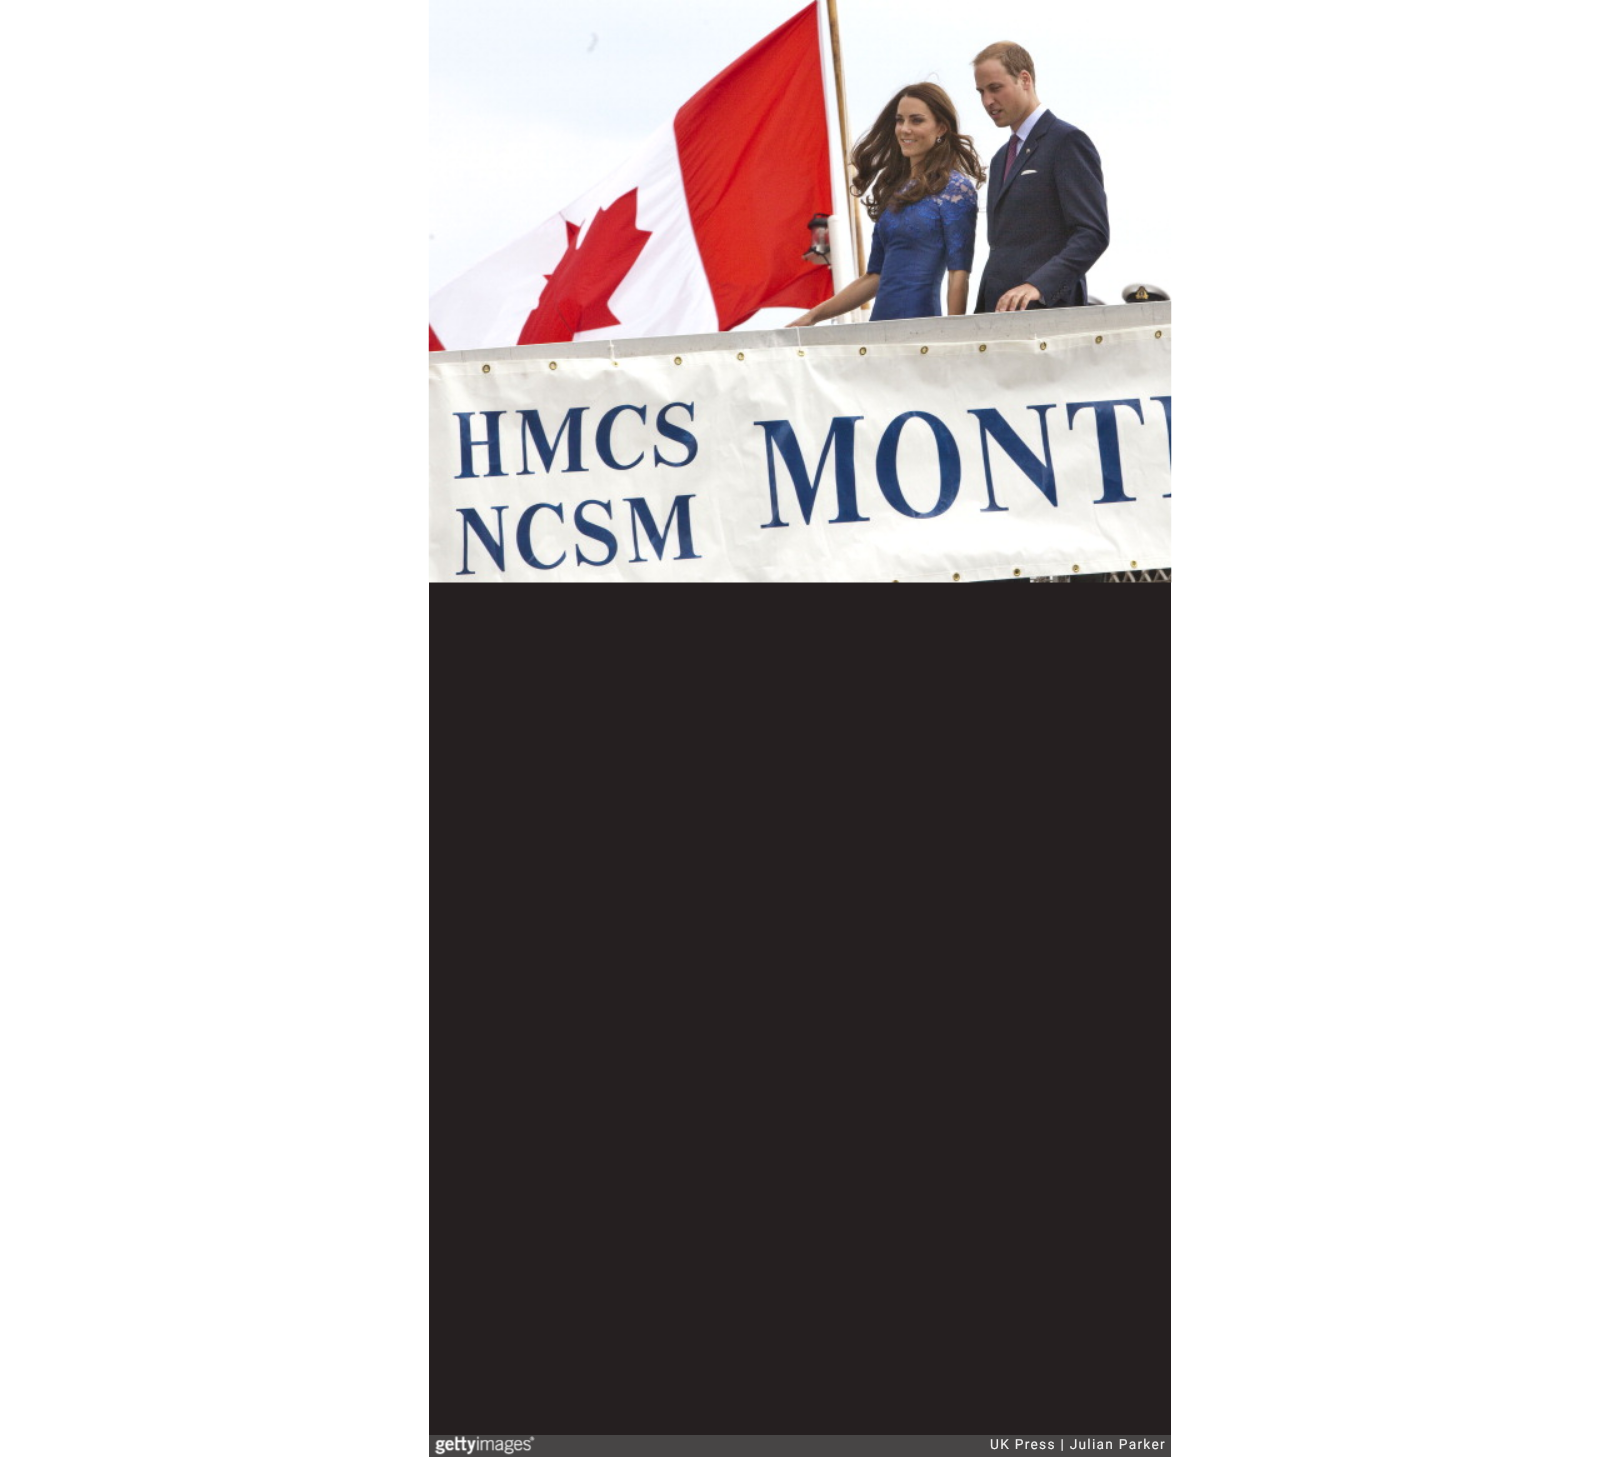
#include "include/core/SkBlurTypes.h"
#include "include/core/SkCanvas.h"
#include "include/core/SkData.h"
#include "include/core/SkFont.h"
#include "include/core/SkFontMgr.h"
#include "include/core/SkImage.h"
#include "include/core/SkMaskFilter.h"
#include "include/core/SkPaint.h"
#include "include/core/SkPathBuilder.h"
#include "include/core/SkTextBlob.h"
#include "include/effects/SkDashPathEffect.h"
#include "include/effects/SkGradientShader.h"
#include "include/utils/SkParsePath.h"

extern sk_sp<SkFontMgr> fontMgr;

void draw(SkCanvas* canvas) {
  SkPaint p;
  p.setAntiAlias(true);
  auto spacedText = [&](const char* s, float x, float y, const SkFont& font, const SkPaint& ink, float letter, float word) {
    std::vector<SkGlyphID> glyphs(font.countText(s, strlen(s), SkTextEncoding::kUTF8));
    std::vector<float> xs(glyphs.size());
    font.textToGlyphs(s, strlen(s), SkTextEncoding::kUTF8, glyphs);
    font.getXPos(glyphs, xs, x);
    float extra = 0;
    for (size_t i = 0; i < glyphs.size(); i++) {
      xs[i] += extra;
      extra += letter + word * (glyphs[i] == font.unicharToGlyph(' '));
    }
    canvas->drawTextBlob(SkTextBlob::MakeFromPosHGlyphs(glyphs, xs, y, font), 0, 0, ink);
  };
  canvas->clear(SK_ColorWHITE);
  p.setColor(SkColorSetRGB(37, 31, 32));
  canvas->drawRect(SkRect::MakeLTRB(429, 582, 1171, 1435), p);
  canvas->drawImageRect(SkImages::DeferredFromEncodedData(SkData::MakeFromFileName("images/1.png")), SkRect::MakeLTRB(428, 0, 1172, 583), SkSamplingOptions());
  p.setColor(SkColorSetRGB(71, 69, 69));
  canvas->drawRect(SkRect::MakeLTRB(429, 1435, 1171, 1457), p);
  canvas->drawImageRect(SkImages::DeferredFromEncodedData(SkData::MakeFromFileName("images/2.png")), SkRect::MakeLTRB(434, 1436, 535, 1455), SkSamplingOptions());
  SkFont font1(fontMgr->matchFamilyStyle("Roboto", SkFontStyle::Normal()), 13.75f);
  font1.setSubpixel(true);
  p.setColor(SkColorSetRGB(238, 238, 238));
  spacedText("UK Press | Julian Parker", 990, 1449, font1, p, 1.25f, 0);
}
